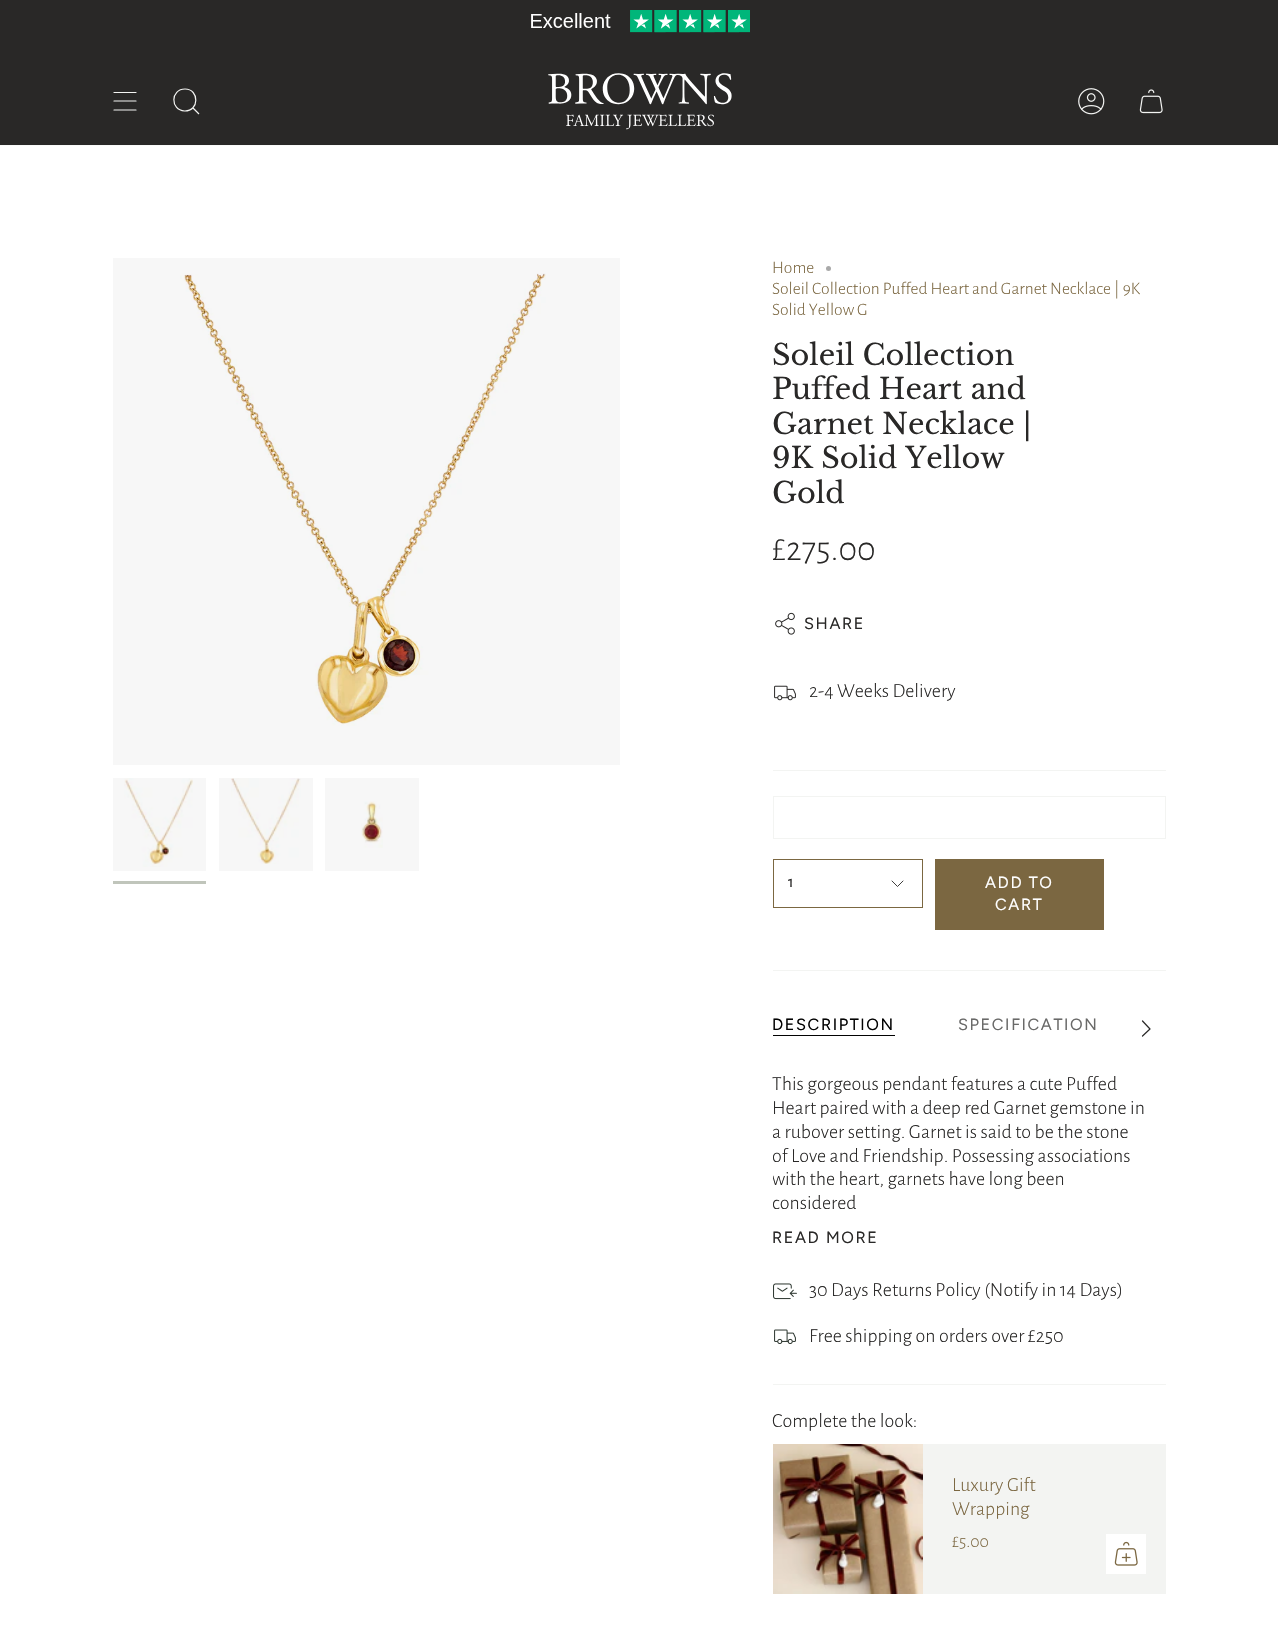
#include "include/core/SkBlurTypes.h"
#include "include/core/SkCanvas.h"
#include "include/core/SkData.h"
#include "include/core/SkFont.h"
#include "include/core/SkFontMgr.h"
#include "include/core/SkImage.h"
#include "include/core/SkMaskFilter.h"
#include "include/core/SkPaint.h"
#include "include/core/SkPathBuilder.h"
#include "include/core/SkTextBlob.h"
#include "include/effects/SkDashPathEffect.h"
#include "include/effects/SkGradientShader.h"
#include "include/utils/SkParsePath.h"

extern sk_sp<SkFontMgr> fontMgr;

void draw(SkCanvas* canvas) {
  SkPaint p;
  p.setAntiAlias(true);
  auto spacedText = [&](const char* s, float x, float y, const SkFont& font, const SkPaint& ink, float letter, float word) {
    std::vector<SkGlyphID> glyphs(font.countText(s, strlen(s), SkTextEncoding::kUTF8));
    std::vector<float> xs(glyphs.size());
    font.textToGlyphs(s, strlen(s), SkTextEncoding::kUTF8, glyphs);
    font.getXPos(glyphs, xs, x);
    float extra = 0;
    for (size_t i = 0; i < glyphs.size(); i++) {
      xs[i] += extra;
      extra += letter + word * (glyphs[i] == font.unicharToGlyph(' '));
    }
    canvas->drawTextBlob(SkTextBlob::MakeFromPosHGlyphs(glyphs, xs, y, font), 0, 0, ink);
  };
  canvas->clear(SK_ColorWHITE);
  p.setColor(SkColorSetRGB(41, 40, 39));
  canvas->drawRect(SkRect::MakeLTRB(0, 0, 1278, 145), p);
  p.setStyle(SkPaint::kStroke_Style);
  p.setStrokeWidth(1.2f);
  p.setStrokeCap(SkPaint::kRound_Cap);
  p.setStrokeJoin(SkPaint::kRound_Join);
  p.setColor(SkColorSetRGB(243, 244, 242));
  canvas->drawPath(SkPathBuilder().moveTo(114, 92.5f).lineTo(136, 92.5f).moveTo(114, 101).lineTo(136, 101).moveTo(114, 110).lineTo(136, 110).detach(), p);
  p.setStrokeCap(SkPaint::kButt_Cap);
  p.setStrokeJoin(SkPaint::kMiter_Join);
  canvas->drawPath(SkPathBuilder().moveTo(185, 89).cubicTo(199.5f, 89, 199.5f, 111.5f, 184.5f, 111).cubicTo(170, 110, 170.5f, 89, 185, 89).close().moveTo(192.5f, 107.5f).lineTo(199, 114).detach(), p);
  canvas->drawImageRect(SkImages::DeferredFromEncodedData(SkData::MakeFromFileName("images/1.png")), SkRect::MakeLTRB(548, 73, 732, 130), SkSamplingOptions());
  canvas->drawImageRect(SkImages::DeferredFromEncodedData(SkData::MakeFromFileName("images/2.png")), SkRect::MakeLTRB(1078, 88, 1105, 115), SkSamplingOptions());
  canvas->drawImageRect(SkImages::DeferredFromEncodedData(SkData::MakeFromFileName("images/3.png")), SkRect::MakeLTRB(1139, 89, 1163, 114), SkSamplingOptions());
  p.setStyle(SkPaint::kFill_Style);
  p.setColor(SkColorSetRGB(249, 250, 249));
  canvas->drawRect(SkRect::MakeLTRB(0, 145, 1278, 146), p);
  canvas->drawImageRect(SkImages::DeferredFromEncodedData(SkData::MakeFromFileName("images/4.png")), SkRect::MakeLTRB(531, 10, 750, 33), SkSamplingOptions());
  p.setColor(SkColorSetRGB(247, 247, 247));
  canvas->drawRect(SkRect::MakeLTRB(113, 258, 620, 765), p);
  canvas->drawImageRect(SkImages::DeferredFromEncodedData(SkData::MakeFromFileName("images/5.png")), SkRect::MakeLTRB(180, 273, 546, 726), SkSamplingOptions());
  canvas->drawRect(SkRect::MakeLTRB(113, 778, 206, 871), p);
  canvas->drawImageRect(SkImages::DeferredFromEncodedData(SkData::MakeFromFileName("images/6.png")), SkRect::MakeLTRB(124, 778, 193, 867), SkSamplingOptions());
  p.setColor(SkColorSetRGB(192, 197, 187));
  canvas->drawRect(SkRect::MakeLTRB(113, 881, 206, 884), p);
  p.setColor(SkColorSetRGB(247, 247, 247));
  canvas->drawRect(SkRect::MakeLTRB(219, 778, 313, 871), p);
  canvas->drawImageRect(SkImages::DeferredFromEncodedData(SkData::MakeFromFileName("images/7.png")), SkRect::MakeLTRB(231, 778, 301, 864), SkSamplingOptions());
  canvas->drawRect(SkRect::MakeLTRB(325, 778, 419, 871), p);
  canvas->drawImageRect(SkImages::DeferredFromEncodedData(SkData::MakeFromFileName("images/8.png")), SkRect::MakeLTRB(361, 801, 383, 848), SkSamplingOptions());
  p.setColor(SkColorSetRGB(169, 169, 169));
  canvas->drawCircle(828.5f, 268.5f, 2.5f, p);
  canvas->drawImageRect(SkImages::DeferredFromEncodedData(SkData::MakeFromFileName("images/9.png")), SkRect::MakeLTRB(775, 612, 795, 635), SkSamplingOptions());
  canvas->drawImageRect(SkImages::DeferredFromEncodedData(SkData::MakeFromFileName("images/10.png")), SkRect::MakeLTRB(774, 685, 796, 701), SkSamplingOptions());
  p.setColor(SkColorSetRGB(243, 244, 242));
  canvas->drawRect(SkRect::MakeLTRB(773, 770, 1166, 771), p);
  p.setStyle(SkPaint::kStroke_Style);
  p.setStrokeWidth(1);
  canvas->drawRect(SkRect::MakeLTRB(773.5f, 796.5f, 1165.5f, 838.5f), p);
  p.setColor(SkColorSetRGB(123, 103, 65));
  canvas->drawRect(SkRect::MakeLTRB(773.5f, 859.5f, 922.5f, 907.5f), p);
  p.setStrokeWidth(0.9f);
  p.setStrokeCap(SkPaint::kRound_Cap);
  p.setStrokeJoin(SkPaint::kRound_Join);
  p.setColor(SkColorSetRGB(41, 40, 39));
  canvas->drawPath(SkPathBuilder().moveTo(892, 881).lineTo(897.5f, 886.5f).lineTo(903, 881).detach(), p);
  p.setStyle(SkPaint::kFill_Style);
  p.setColor(SkColorSetRGB(123, 103, 65));
  canvas->drawRect(SkRect::MakeLTRB(935, 859, 1104, 930), p);
  p.setColor(SkColorSetRGB(243, 244, 242));
  canvas->drawRect(SkRect::MakeLTRB(773, 970, 1166, 971), p);
  p.setColor(SkColorSetRGB(2, 2, 2));
  canvas->drawRect(SkRect::MakeLTRB(773, 1035, 895, 1036), p);
  p.setStyle(SkPaint::kStroke_Style);
  p.setStrokeWidth(1.2f);
  p.setColor(SkColorSetRGB(41, 40, 39));
  canvas->drawPath(SkPathBuilder().moveTo(1142.5f, 1021).lineTo(1150, 1029).lineTo(1142.5f, 1036).detach(), p);
  canvas->drawImageRect(SkImages::DeferredFromEncodedData(SkData::MakeFromFileName("images/11.png")), SkRect::MakeLTRB(773, 1283, 797, 1300), SkSamplingOptions());
  canvas->drawImageRect(SkImages::DeferredFromEncodedData(SkData::MakeFromFileName("images/12.png")), SkRect::MakeLTRB(774, 1329, 796, 1344), SkSamplingOptions());
  p.setStyle(SkPaint::kFill_Style);
  p.setColor(SkColorSetRGB(243, 244, 242));
  canvas->drawRect(SkRect::MakeLTRB(773, 1384, 1166, 1385), p);
  canvas->drawRect(SkRect::MakeLTRB(923, 1444, 1166, 1594), p);
  canvas->drawImageRect(SkImages::DeferredFromEncodedData(SkData::MakeFromFileName("images/13.png")), SkRect::MakeLTRB(773, 1444, 923, 1594), SkSamplingOptions());
  p.setColor(SK_ColorWHITE);
  canvas->drawRect(SkRect::MakeLTRB(1106, 1534, 1146, 1574), p);
  canvas->drawImageRect(SkImages::DeferredFromEncodedData(SkData::MakeFromFileName("images/14.png")), SkRect::MakeLTRB(1114, 1541, 1138, 1566), SkSamplingOptions());
  SkFont font1(fontMgr->matchFamilyStyle("Alegreya Sans", SkFontStyle(300, SkFontStyle::kNormal_Width, SkFontStyle::kUpright_Slant)), 17.5f);
  font1.setSubpixel(true);
  p.setColor(SkColorSetRGB(123, 103, 65));
  canvas->drawString("Home", 772, 273, font1, p);
  canvas->drawString("Soleil Collection Puffed Heart and Garnet Necklace | 9K", 772, 294, font1, p);
  canvas->drawString("Solid Yellow G", 772, 315, font1, p);
  SkFont font2(fontMgr->matchFamilyStyle("Libre Baskerville", SkFontStyle::Normal()), 28.75f);
  font2.setSubpixel(true);
  p.setColor(SkColorSetRGB(41, 40, 39));
  canvas->drawString("Soleil Collection", 772, 365, font2, p);
  canvas->drawString("Puffed Heart and", 772, 399, font2, p);
  canvas->drawString("Garnet Necklace |", 772, 434, font2, p);
  canvas->drawString("9K Solid Yellow", 772, 468, font2, p);
  canvas->drawString("Gold", 772, 503, font2, p);
  SkFont font3(fontMgr->matchFamilyStyle("Alegreya Sans", SkFontStyle(300, SkFontStyle::kNormal_Width, SkFontStyle::kUpright_Slant)), 35);
  font3.setSubpixel(true);
  canvas->drawString("£275.00", 772, 560, font3, p);
  SkFont font4(fontMgr->matchFamilyStyle("Figtree", SkFontStyle::Normal()), 16.25f);
  font4.setSubpixel(true);
  spacedText("SHARE", 804, 629, font4, p, 1.6f, 0);
  SkFont font5(fontMgr->matchFamilyStyle("Alegreya Sans", SkFontStyle(300, SkFontStyle::kNormal_Width, SkFontStyle::kUpright_Slant)), 20);
  font5.setSubpixel(true);
  canvas->drawString("2-4 Weeks Delivery", 809, 697, font5, p);
  SkFont font6(fontMgr->matchFamilyStyle("Alegreya Sans", SkFontStyle::Normal()), 16.25f);
  font6.setSubpixel(true);
  canvas->drawString("1", 788, 887, font6, p);
  p.setColor(SK_ColorWHITE);
  spacedText("ADD TO", 985, 888, font4, p, 1.6f, 0);
  spacedText("CART", 995, 910, font4, p, 1.6f, 0);
  p.setColor(SkColorSetRGB(123, 103, 65));
  canvas->drawPath(SkPathBuilder().moveTo(1015.5f, 900.5f).lineTo(1028, 888).lineTo(1029, 889).lineTo(1016.5f, 901.5f).close().detach(), p);
  p.setColor(SkColorSetRGB(2, 2, 2));
  spacedText("DESCRIPTION", 772, 1030, font4, p, 1.6f, 0);
  p.setColor(SkColorSetRGB(105, 105, 104));
  spacedText("SPECIFICATION", 958, 1030, font4, p, 1.6f, 0);
  p.setColor(SkColorSetRGB(41, 40, 39));
  canvas->drawString("This gorgeous pendant features a cute Puffed", 772, 1090, font5, p);
  canvas->drawString("Heart paired with a deep red Garnet gemstone in", 772, 1114, font5, p);
  canvas->drawString("a rubover setting. Garnet is said to be the stone", 772, 1138, font5, p);
  canvas->drawString("of Love and Friendship. Possessing associations", 772, 1162, font5, p);
  canvas->save();
  canvas->clipRect(SkRect::MakeLTRB(773, 996, 1166, 1268));
  canvas->drawString("with the heart, garnets have long been", 772, 1185, font5, p);
  canvas->restore();
  canvas->drawString("considered", 772, 1209, font5, p);
  spacedText("READ MORE", 772, 1243, font4, p, 1.6f, 0);
  canvas->drawString("30 Days Returns Policy (Notify in 14 Days)", 809, 1296, font5, p);
  canvas->drawString("Free shipping on orders over £250", 809, 1342, font5, p);
  canvas->drawString("Complete the look:", 772, 1427, font5, p);
  p.setColor(SkColorSetRGB(123, 103, 65));
  canvas->drawString("Luxury Gift", 952, 1491, font5, p);
  canvas->drawString("Wrapping", 952, 1515, font5, p);
  canvas->drawString("£5.00", 952, 1547, font1, p);
}
